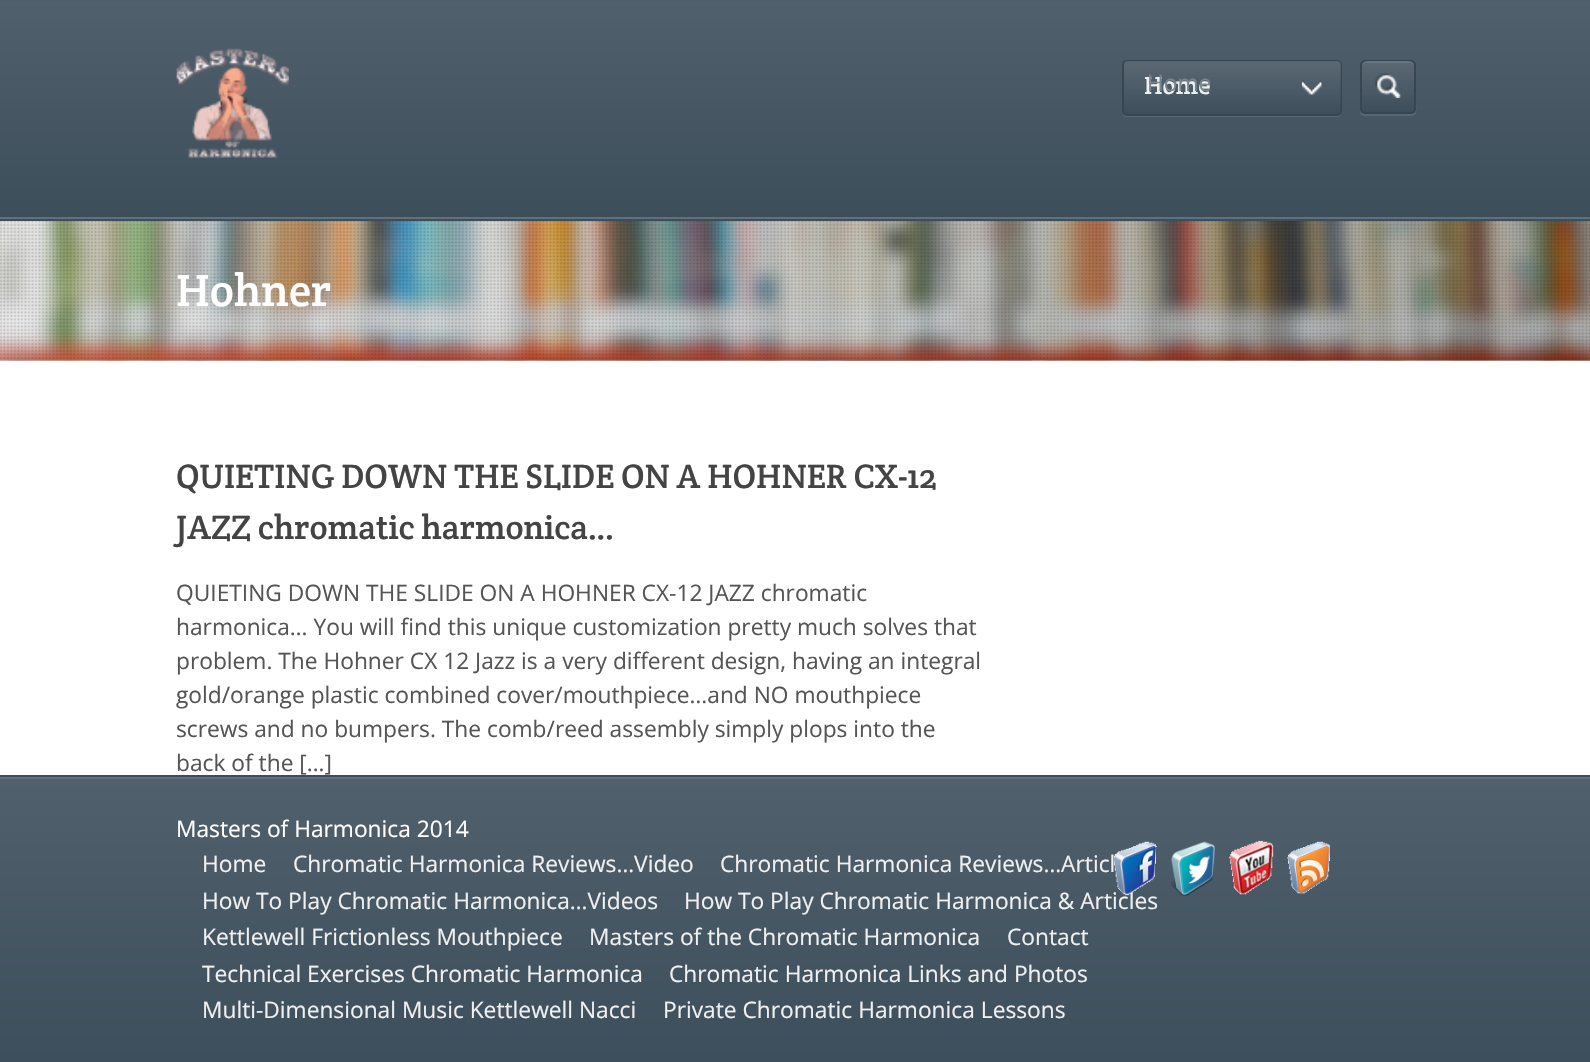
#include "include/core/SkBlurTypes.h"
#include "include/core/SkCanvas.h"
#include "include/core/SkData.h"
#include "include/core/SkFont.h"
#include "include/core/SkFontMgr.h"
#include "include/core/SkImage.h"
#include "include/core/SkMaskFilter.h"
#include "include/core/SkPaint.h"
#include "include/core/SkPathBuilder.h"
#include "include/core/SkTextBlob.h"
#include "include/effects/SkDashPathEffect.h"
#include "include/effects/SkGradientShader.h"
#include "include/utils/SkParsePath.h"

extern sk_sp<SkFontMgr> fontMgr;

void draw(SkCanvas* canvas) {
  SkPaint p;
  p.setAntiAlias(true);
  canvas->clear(SK_ColorWHITE);
  {
    const SkColor colors[] = {SkColorSetRGB(80, 96, 108), SkColorSetRGB(61, 78, 91)};
    const float stops[] = {0, 1};
    const SkPoint ends[] = {{795, 1.7f}, {795, 217}};
    p.setShader(SkGradientShader::MakeLinear(ends, colors, stops, 2, SkTileMode::kClamp));
    p.setAlpha(255);
  }
  canvas->drawRect(SkRect::MakeLTRB(0, 2, 1590, 217), p);
  p.setShader(nullptr);
  p.setColor(SkColorSetRGB(80, 96, 107));
  canvas->drawRect(SkRect::MakeLTRB(0, 0, 1590, 2), p);
  p.setColor(SkColorSetRGB(98, 112, 122));
  canvas->drawRect(SkRect::MakeLTRB(0, 217, 1590, 219), p);
  canvas->drawImageRect(SkImages::DeferredFromEncodedData(SkData::MakeFromFileName("images/1.png")), SkRect::MakeLTRB(176, 48, 289, 158), SkSamplingOptions());
  p.setColor(SkColorSetRGB(89, 103, 115));
  canvas->drawPath(SkPathBuilder().moveTo(1122, 112).cubicTo(1122, 115, 1124, 117, 1127, 117).lineTo(1337, 117).cubicTo(1340, 117, 1342, 115, 1342, 112).cubicTo(1341, 114, 1339, 116, 1337, 116).lineTo(1127, 116).cubicTo(1125, 116, 1123, 114, 1122, 112).close().detach(), p);
  p.setColor(SkColorSetRGB(61, 78, 91));
  canvas->drawRoundRect(SkRect::MakeLTRB(1122, 60, 1342, 116), 5, 5, p);
  canvas->drawImageRect(SkImages::DeferredFromEncodedData(SkData::MakeFromFileName("images/2.png")), SkRect::MakeLTRB(1302, 80, 1322, 95), SkSamplingOptions());
  p.setStyle(SkPaint::kStroke_Style);
  p.setStrokeWidth(2);
  p.setColor(SkColorSetARGB(26, 0, 0, 0));
  canvas->drawRoundRect(SkRect::MakeLTRB(1123, 61, 1341, 115), 4, 4, p);
  p.setStyle(SkPaint::kFill_Style);
  {
    const SkColor colors[] = {SkColorSetARGB(38, 255, 255, 255), SkColorSetARGB(0, 255, 255, 255)};
    const float stops[] = {0, 1};
    const SkPoint ends[] = {{1232, 61}, {1232, 114}};
    p.setShader(SkGradientShader::MakeLinear(ends, colors, stops, 2, SkTileMode::kClamp));
    p.setAlpha(255);
  }
  canvas->drawRoundRect(SkRect::MakeLTRB(1124, 61, 1341, 114), 4, 4, p);
  p.setShader(nullptr);
  p.setColor(SkColorSetRGB(89, 103, 115));
  canvas->drawPath(SkPathBuilder().moveTo(1360, 110).cubicTo(1360, 118, 1367, 116, 1373, 116).lineTo(1412, 116).cubicTo(1418, 115, 1416, 107, 1416, 104).lineTo(1416, 64).lineTo(1416, 101).cubicTo(1416, 114, 1416, 114, 1403, 114).lineTo(1373, 114).cubicTo(1369, 114, 1362, 115, 1360, 110).close().detach(), p);
  p.setColor(SkColorSetRGB(61, 78, 91));
  canvas->drawRoundRect(SkRect::MakeLTRB(1360, 60, 1416, 114), 5, 5, p);
  canvas->drawImageRect(SkImages::DeferredFromEncodedData(SkData::MakeFromFileName("images/3.png")), SkRect::MakeLTRB(1375, 73, 1401, 98), SkSamplingOptions());
  p.setStyle(SkPaint::kStroke_Style);
  p.setColor(SkColorSetARGB(26, 0, 0, 0));
  canvas->drawRoundRect(SkRect::MakeLTRB(1361, 61, 1415, 113), 4, 4, p);
  p.setStyle(SkPaint::kFill_Style);
  {
    const SkColor colors[] = {SkColorSetARGB(38, 255, 255, 255), SkColorSetARGB(0, 255, 255, 255)};
    const float stops[] = {0, 1};
    const SkPoint ends[] = {{1388, 61}, {1388, 112}};
    p.setShader(SkGradientShader::MakeLinear(ends, colors, stops, 2, SkTileMode::kClamp));
    p.setAlpha(255);
  }
  canvas->drawRoundRect(SkRect::MakeLTRB(1362, 61, 1414, 112), 5, 5, p);
  p.setShader(nullptr);
  p.setColor(SkColorSetARGB(26, 255, 255, 255));
  canvas->drawPath(SkPathBuilder().moveTo(1367, 63).lineTo(1409, 63).cubicTo(1412, 63, 1414, 65, 1414, 68).cubicTo(1414, 60, 1409, 61, 1402, 61).lineTo(1374, 61).cubicTo(1367, 61, 1362, 60, 1362, 68).cubicTo(1362, 65, 1364, 63, 1367, 63).close().detach(), p);
  p.setColor(SkColorSetRGB(61, 78, 91));
  canvas->drawRect(SkRect::MakeLTRB(0, 219, 1590, 221), p);
  canvas->drawImageRect(SkImages::DeferredFromEncodedData(SkData::MakeFromFileName("images/4.png")), SkRect::MakeLTRB(0, 360, 1590, 361), SkSamplingOptions());
  canvas->drawImageRect(SkImages::DeferredFromEncodedData(SkData::MakeFromFileName("images/5.png")), SkRect::MakeLTRB(0, 221, 1590, 361), SkSamplingOptions());
  canvas->drawImageRect(SkImages::DeferredFromEncodedData(SkData::MakeFromFileName("images/6.png")), SkRect::MakeLTRB(0, 221, 1590, 359), SkSamplingOptions());
  canvas->save();
  canvas->clipRect(SkRect::MakeLTRB(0, 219, 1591, 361));
  p.setColor(SkColorSetARGB(77, 0, 0, 0));
  p.setMaskFilter(SkMaskFilter::MakeBlur(kNormal_SkBlurStyle, 13));
  canvas->drawRect(SkRect::MakeLTRB(0, 361, 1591, 369), p);
  p.setMaskFilter(nullptr);
  canvas->restore();
  {
    const SkColor colors[] = {SkColorSetRGB(80, 96, 108), SkColorSetRGB(61, 78, 92)};
    const float stops[] = {0, 1};
    const SkPoint ends[] = {{795, 779}, {795, 1062}};
    p.setShader(SkGradientShader::MakeLinear(ends, colors, stops, 2, SkTileMode::kClamp));
    p.setAlpha(255);
  }
  canvas->drawRect(SkRect::MakeLTRB(0, 779, 1590, 1062), p);
  p.setShader(nullptr);
  p.setColor(SkColorSetRGB(100, 113, 124));
  canvas->drawRect(SkRect::MakeLTRB(0, 777, 1590, 779), p);
  p.setColor(SkColorSetRGB(61, 78, 91));
  canvas->drawRect(SkRect::MakeLTRB(0, 775, 1590, 777), p);
  canvas->drawImageRect(SkImages::DeferredFromEncodedData(SkData::MakeFromFileName("images/8.png")), SkRect::MakeLTRB(1170, 841, 1215, 896), SkSamplingOptions());
  canvas->drawImageRect(SkImages::DeferredFromEncodedData(SkData::MakeFromFileName("images/9.png")), SkRect::MakeLTRB(1229, 840, 1274, 895), SkSamplingOptions());
  canvas->drawImageRect(SkImages::DeferredFromEncodedData(SkData::MakeFromFileName("images/10.png")), SkRect::MakeLTRB(1287, 841, 1330, 894), SkSamplingOptions());
  SkFont font1(fontMgr->matchFamilyStyle("Crete Round", SkFontStyle::Normal()), 25);
  font1.setSubpixel(true);
  p.setColor(SkColorSetRGB(240, 240, 240));
  canvas->drawString("Home", 1144, 94, font1, p);
  SkFont font2(fontMgr->matchFamilyStyle("Open Sans", SkFontStyle::Normal()), 22.75f);
  font2.setSubpixel(true);
  p.setColor(SkColorSetRGB(122, 133, 142));
  canvas->drawString("Home", 1147, 91, font2, p);
  SkFont font3(fontMgr->matchFamilyStyle("Crete Round", SkFontStyle::Normal()), 45.5f);
  font3.setSubpixel(true);
  p.setColor(SK_ColorWHITE);
  canvas->drawString("Hohner", 176, 306, font3, p);
  SkFont font4(fontMgr->matchFamilyStyle("Crete Round", SkFontStyle::Normal()), 34.1f);
  font4.setSubpixel(true);
  p.setColor(SkColorSetRGB(68, 68, 68));
  canvas->drawString("QUIETING DOWN THE SLIDE ON A HOHNER CX-12", 176, 488, font4, p);
  canvas->drawString("JAZZ chromatic harmonica…", 176, 539, font4, p);
  p.setColor(SkColorSetRGB(85, 85, 85));
  canvas->drawString("QUIETING DOWN THE SLIDE ON A HOHNER CX-12 JAZZ chromatic", 176, 601, font2, p);
  canvas->drawString("harmonica… You will find this unique customization pretty much solves that", 176, 635, font2, p);
  canvas->drawString("problem. The Hohner CX 12 Jazz is a very different design, having an integral", 176, 669, font2, p);
  canvas->drawString("gold/orange plastic combined cover/mouthpiece…and NO mouthpiece", 176, 703, font2, p);
  canvas->drawString("screws and no bumpers. The comb/reed assembly simply plops into the", 176, 737, font2, p);
  canvas->drawString("back of the […]", 176, 771, font2, p);
  p.setColor(SK_ColorWHITE);
  canvas->drawString("Masters of Harmonica 2014", 176, 837, font2, p);
  p.setColor(SkColorSetRGB(240, 240, 240));
  canvas->drawString("Home", 202, 872, font2, p);
  canvas->drawString("Chromatic Harmonica Reviews…Video", 293, 872, font2, p);
  canvas->drawString("Chromatic Harmonica Reviews…Articl", 720, 872, font2, p);
  canvas->drawString("How To Play Chromatic Harmonica…Videos", 202, 909, font2, p);
  canvas->drawString("How To Play Chromatic Harmonica & Articles", 684, 909, font2, p);
  canvas->drawString("Kettlewell Frictionless Mouthpiece", 202, 945, font2, p);
  canvas->drawString("Masters of the Chromatic Harmonica", 589, 945, font2, p);
  canvas->drawString("Contact", 1007, 945, font2, p);
  canvas->drawString("Technical Exercises Chromatic Harmonica", 202, 982, font2, p);
  canvas->drawString("Chromatic Harmonica Links and Photos", 669, 982, font2, p);
  canvas->drawString("Multi-Dimensional Music Kettlewell Nacci", 202, 1018, font2, p);
  canvas->drawString("Private Chromatic Harmonica Lessons", 663, 1018, font2, p);
  canvas->drawImageRect(SkImages::DeferredFromEncodedData(SkData::MakeFromFileName("images/7.png")), SkRect::MakeLTRB(1113, 841, 1157, 896), SkSamplingOptions());
}
